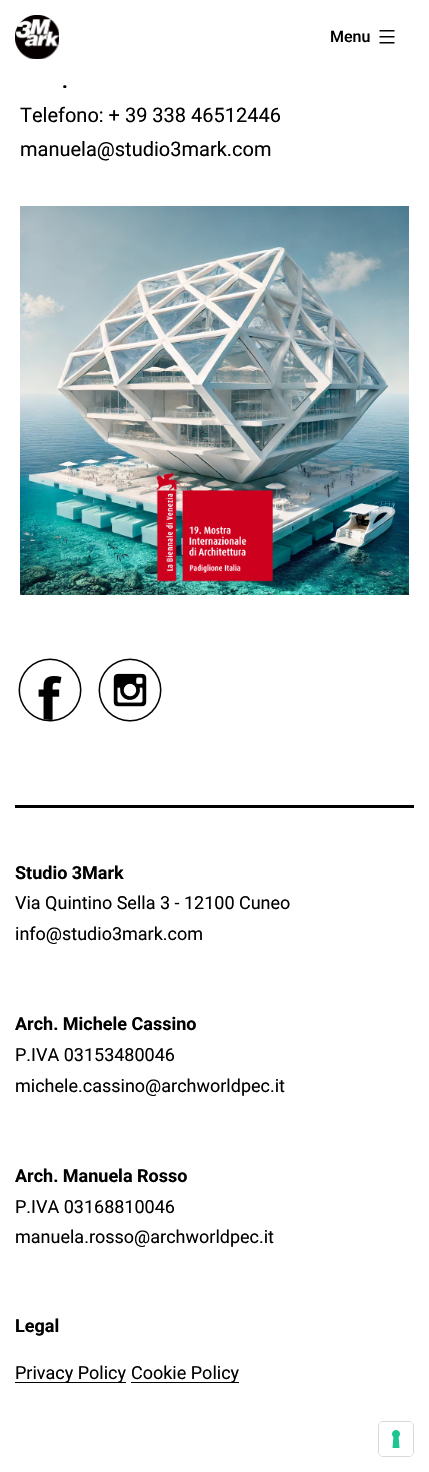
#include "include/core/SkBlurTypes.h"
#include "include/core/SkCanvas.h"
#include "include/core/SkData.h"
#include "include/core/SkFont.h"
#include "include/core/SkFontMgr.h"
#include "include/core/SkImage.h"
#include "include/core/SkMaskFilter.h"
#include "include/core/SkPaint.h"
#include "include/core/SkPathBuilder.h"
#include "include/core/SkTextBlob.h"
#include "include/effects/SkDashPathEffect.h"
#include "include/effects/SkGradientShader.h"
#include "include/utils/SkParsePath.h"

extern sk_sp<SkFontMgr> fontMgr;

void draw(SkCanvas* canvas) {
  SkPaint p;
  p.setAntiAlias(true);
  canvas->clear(SK_ColorWHITE);
  canvas->drawImageRect(SkImages::DeferredFromEncodedData(SkData::MakeFromFileName("images/1.png")), SkRect::MakeLTRB(15, 15, 59, 59), SkSamplingOptions());
  canvas->drawImageRect(SkImages::DeferredFromEncodedData(SkData::MakeFromFileName("images/2.png")), SkRect::MakeLTRB(379, 30, 395, 44), SkSamplingOptions());
  canvas->drawImageRect(SkImages::DeferredFromEncodedData(SkData::MakeFromFileName("images/3.png")), SkRect::MakeLTRB(20, 206, 409, 595), SkSamplingOptions());
  canvas->drawImageRect(SkImages::DeferredFromEncodedData(SkData::MakeFromFileName("images/4.png")), SkRect::MakeLTRB(18, 658, 82, 722), SkSamplingOptions());
  canvas->drawImageRect(SkImages::DeferredFromEncodedData(SkData::MakeFromFileName("images/5.png")), SkRect::MakeLTRB(98, 658, 162, 722), SkSamplingOptions());
  p.setColor(SK_ColorBLACK);
  canvas->drawRect(SkRect::MakeLTRB(15, 805, 414, 808), p);
  canvas->drawRect(SkRect::MakeLTRB(15, 1382, 126, 1383), p);
  canvas->drawRect(SkRect::MakeLTRB(131, 1382, 239, 1383), p);
  p.setStyle(SkPaint::kStroke_Style);
  p.setStrokeWidth(1);
  p.setColor(SkColorSetRGB(217, 217, 217));
  canvas->drawRoundRect(SkRect::MakeLTRB(378.5f, 1421.5f, 413.5f, 1456.5f), 4.5f, 4.5f, p);
  p.setStyle(SkPaint::kFill_Style);
  p.setColor(SK_ColorWHITE);
  canvas->drawRoundRect(SkRect::MakeLTRB(379, 1422, 413, 1456), 4, 4, p);
  canvas->drawImageRect(SkImages::DeferredFromEncodedData(SkData::MakeFromFileName("images/6.png")), SkRect::MakeLTRB(392, 1430, 400, 1448), SkSamplingOptions());
  SkFont font1(fontMgr->matchFamilyStyle("Roboto", SkFontStyle(500, SkFontStyle::kNormal_Width, SkFontStyle::kUpright_Slant)), 16);
  font1.setSubpixel(true);
  p.setColor(SK_ColorBLACK);
  canvas->drawString("Menu", 330, 42, font1, p);
  SkFont font2(fontMgr->matchFamilyStyle("Roboto", SkFontStyle::Bold()), 20);
  font2.setSubpixel(true);
  canvas->drawString(".", 62, 88, font2, p);
  SkFont font3(fontMgr->matchFamilyStyle("Roboto", SkFontStyle::Normal()), 20);
  font3.setSubpixel(true);
  canvas->drawString("Telefono: + 39 338 46512446", 20, 122, font3, p);
  canvas->drawString("manuela@studio3mark.com", 20, 156, font3, p);
  SkFont font4(fontMgr->matchFamilyStyle("Roboto", SkFontStyle::Bold()), 18);
  font4.setSubpixel(true);
  canvas->drawString("Studio 3Mark", 15, 879, font4, p);
  SkFont font5(fontMgr->matchFamilyStyle("Roboto", SkFontStyle::Normal()), 18);
  font5.setSubpixel(true);
  canvas->drawString("Via Quintino Sella 3 - 12100 Cuneo", 15, 909, font5, p);
  canvas->drawString("info@studio3mark.com", 15, 940, font5, p);
  canvas->drawString("Arch. Michele Cassino", 15, 1030, font4, p);
  canvas->drawString("P.IVA 03153480046", 15, 1061, font5, p);
  canvas->drawString("michele.cassino@archworldpec.it", 15, 1092, font5, p);
  canvas->drawString("Arch. Manuela Rosso", 15, 1182, font4, p);
  canvas->drawString("P.IVA 03168810046", 15, 1213, font5, p);
  canvas->drawString("manuela.rosso@archworldpec.it", 15, 1243, font5, p);
  canvas->drawString("Legal", 15, 1332, font4, p);
  canvas->drawString("Privacy Policy", 15, 1379, font5, p);
  canvas->drawString("Cookie Policy", 131, 1379, font5, p);
}
